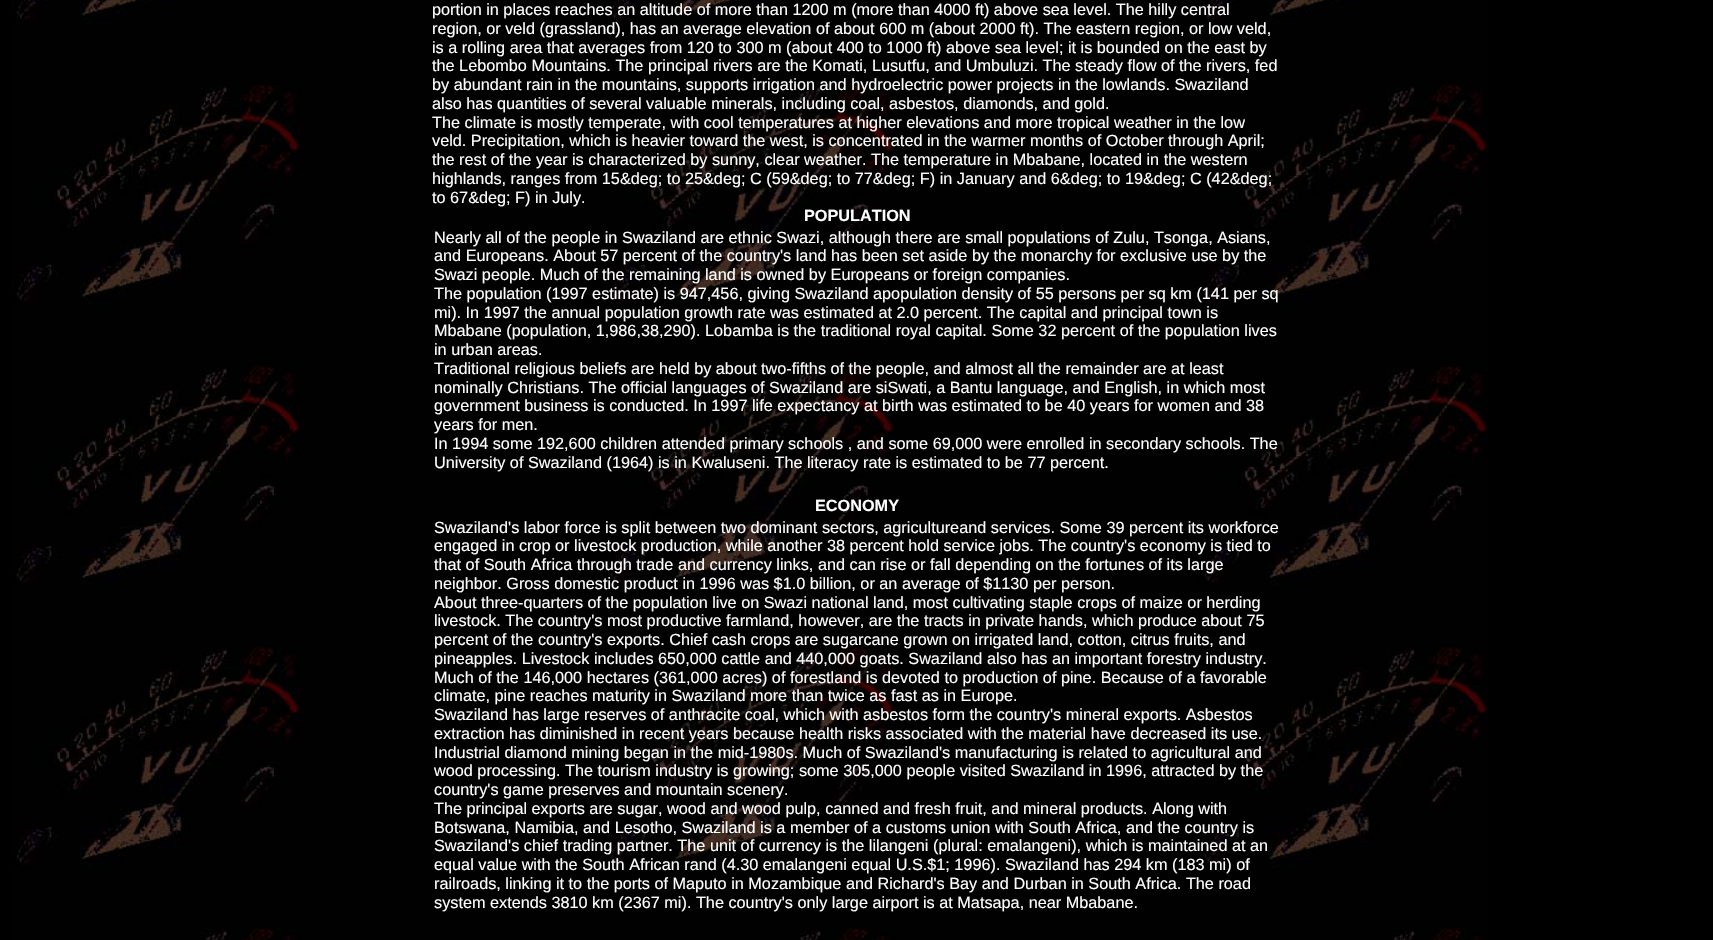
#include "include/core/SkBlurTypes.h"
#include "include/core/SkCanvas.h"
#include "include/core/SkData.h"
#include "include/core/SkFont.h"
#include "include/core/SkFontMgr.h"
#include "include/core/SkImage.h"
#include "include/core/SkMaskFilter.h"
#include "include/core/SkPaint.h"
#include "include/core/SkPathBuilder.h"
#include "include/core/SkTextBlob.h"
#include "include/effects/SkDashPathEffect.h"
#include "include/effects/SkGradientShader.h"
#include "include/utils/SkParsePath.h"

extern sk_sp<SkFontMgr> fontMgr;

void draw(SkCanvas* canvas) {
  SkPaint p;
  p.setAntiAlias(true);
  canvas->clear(SK_ColorBLACK);
  canvas->drawImageRect(SkImages::DeferredFromEncodedData(SkData::MakeFromFileName("images/1.png")), SkRect::MakeLTRB(12, 0, 1488, 940), SkSamplingOptions());
  p.setColor(SK_ColorBLACK);
  canvas->drawRect(SkRect::MakeLTRB(839, 223, 862, 224), p);
  canvas->drawRect(SkRect::MakeLTRB(834, 513, 855, 514), p);
  SkFont font1(fontMgr->matchFamilyStyle("Liberation Sans", SkFontStyle::Normal()), 16.25f);
  font1.setSubpixel(true);
  p.setColor(SK_ColorWHITE);
  canvas->drawString("portion in places reaches an altitude of more than 1200 m (more than 4000 ft) above sea level. The hilly central", 432, 15, font1, p);
  canvas->drawString("region, or veld (grassland), has an average elevation of about 600 m (about 2000 ft). The eastern region, or low veld,", 432, 34, font1, p);
  canvas->drawString("is a rolling area that averages from 120 to 300 m (about 400 to 1000 ft) above sea level; it is bounded on the east by", 432, 53, font1, p);
  canvas->drawString("the Lebombo Mountains. The principal rivers are the Komati, Lusutfu, and Umbuluzi. The steady flow of the rivers, fed", 432, 71, font1, p);
  canvas->drawString("by abundant rain in the mountains, supports irrigation and hydroelectric power projects in the lowlands. Swaziland", 432, 90, font1, p);
  canvas->drawString("also has quantities of several valuable minerals, including coal, asbestos, diamonds, and gold.", 432, 109, font1, p);
  canvas->drawString("The climate is mostly temperate, with cool temperatures at higher elevations and more tropical weather in the low", 432, 128, font1, p);
  canvas->drawString("veld. Precipitation, which is heavier toward the west, is concentrated in the warmer months of October through April;", 432, 146, font1, p);
  canvas->drawString("the rest of the year is characterized by sunny, clear weather. The temperature in Mbabane, located in the western", 432, 165, font1, p);
  canvas->drawString("highlands, ranges from 15&deg; to 25&deg; C (59&deg; to 77&deg; F) in January and 6&deg; to 19&deg; C (42&deg;", 432, 184, font1, p);
  canvas->drawString("to 67&deg; F) in July.", 432, 203, font1, p);
  SkFont font2(fontMgr->matchFamilyStyle("Liberation Sans", SkFontStyle::Bold()), 16.25f);
  font2.setSubpixel(true);
  canvas->drawString("POPULATION", 804, 221, font2, p);
  canvas->drawString("Nearly all of the people in Swaziland are ethnic Swazi, although there are small populations of Zulu, Tsonga, Asians,", 434, 243, font1, p);
  canvas->drawString("and Europeans. About 57 percent of the country's land has been set aside by the monarchy for exclusive use by the", 434, 261, font1, p);
  canvas->drawString("Swazi people. Much of the remaining land is owned by Europeans or foreign companies.", 434, 280, font1, p);
  canvas->drawString("The population (1997 estimate) is 947,456, giving Swaziland apopulation density of 55 persons per sq km (141 per sq", 434, 299, font1, p);
  canvas->drawString("mi). In 1997 the annual population growth rate was estimated at 2.0 percent. The capital and principal town is", 434, 318, font1, p);
  canvas->drawString("Mbabane (population, 1,986,38,290). Lobamba is the traditional royal capital. Some 32 percent of the population lives", 434, 336, font1, p);
  canvas->drawString("in urban areas.", 434, 355, font1, p);
  canvas->drawString("Traditional religious beliefs are held by about two-fifths of the people, and almost all the remainder are at least", 434, 374, font1, p);
  canvas->drawString("nominally Christians. The official languages of Swaziland are siSwati, a Bantu language, and English, in which most", 434, 393, font1, p);
  canvas->drawString("government business is conducted. In 1997 life expectancy at birth was estimated to be 40 years for women and 38", 434, 411, font1, p);
  canvas->drawString("years for men.", 434, 430, font1, p);
  canvas->drawString("In 1994 some 192,600 children attended primary schools , and some 69,000 were enrolled in secondary schools. The", 434, 449, font1, p);
  canvas->drawString("University of Swaziland (1964) is in Kwaluseni. The literacy rate is estimated to be 77 percent.", 434, 468, font1, p);
  canvas->drawString("ECONOMY", 815, 511, font2, p);
  canvas->drawString("Swaziland's labor force is split between two dominant sectors, agricultureand services. Some 39 percent its workforce", 434, 533, font1, p);
  canvas->drawString("engaged in crop or livestock production, while another 38 percent hold service jobs. The country's economy is tied to", 434, 551, font1, p);
  canvas->drawString("that of South Africa through trade and currency links, and can rise or fall depending on the fortunes of its large", 434, 570, font1, p);
  canvas->drawString("neighbor. Gross domestic product in 1996 was $1.0 billion, or an average of $1130 per person.", 434, 589, font1, p);
  canvas->drawString("About three-quarters of the population live on Swazi national land, most cultivating staple crops of maize or herding", 434, 608, font1, p);
  canvas->drawString("livestock. The country's most productive farmland, however, are the tracts in private hands, which produce about 75", 434, 626, font1, p);
  canvas->drawString("percent of the country's exports. Chief cash crops are sugarcane grown on irrigated land, cotton, citrus fruits, and", 434, 645, font1, p);
  canvas->drawString("pineapples. Livestock includes 650,000 cattle and 440,000 goats. Swaziland also has an important forestry industry.", 434, 664, font1, p);
  canvas->drawString("Much of the 146,000 hectares (361,000 acres) of forestland is devoted to production of pine. Because of a favorable", 434, 683, font1, p);
  canvas->drawString("climate, pine reaches maturity in Swaziland more than twice as fast as in Europe.", 434, 701, font1, p);
  canvas->drawString("Swaziland has large reserves of anthracite coal, which with asbestos form the country's mineral exports. Asbestos", 434, 720, font1, p);
  canvas->drawString("extraction has diminished in recent years because health risks associated with the material have decreased its use.", 434, 739, font1, p);
  canvas->drawString("Industrial diamond mining began in the mid-1980s. Much of Swaziland's manufacturing is related to agricultural and", 434, 758, font1, p);
  canvas->drawString("wood processing. The tourism industry is growing; some 305,000 people visited Swaziland in 1996, attracted by the", 434, 776, font1, p);
  canvas->drawString("country's game preserves and mountain scenery.", 434, 795, font1, p);
  canvas->drawString("The principal exports are sugar, wood and wood pulp, canned and fresh fruit, and mineral products. Along with", 434, 814, font1, p);
  canvas->drawString("Botswana, Namibia, and Lesotho, Swaziland is a member of a customs union with South Africa, and the country is", 434, 833, font1, p);
  canvas->drawString("Swaziland's chief trading partner. The unit of currency is the lilangeni (plural: emalangeni), which is maintained at an", 434, 851, font1, p);
  canvas->drawString("equal value with the South African rand (4.30 emalangeni equal U.S.$1; 1996). Swaziland has 294 km (183 mi) of", 434, 870, font1, p);
  canvas->drawString("railroads, linking it to the ports of Maputo in Mozambique and Richard's Bay and Durban in South Africa. The road", 434, 889, font1, p);
  canvas->drawString("system extends 3810 km (2367 mi). The country's only large airport is at Matsapa, near Mbabane.", 434, 908, font1, p);
}
